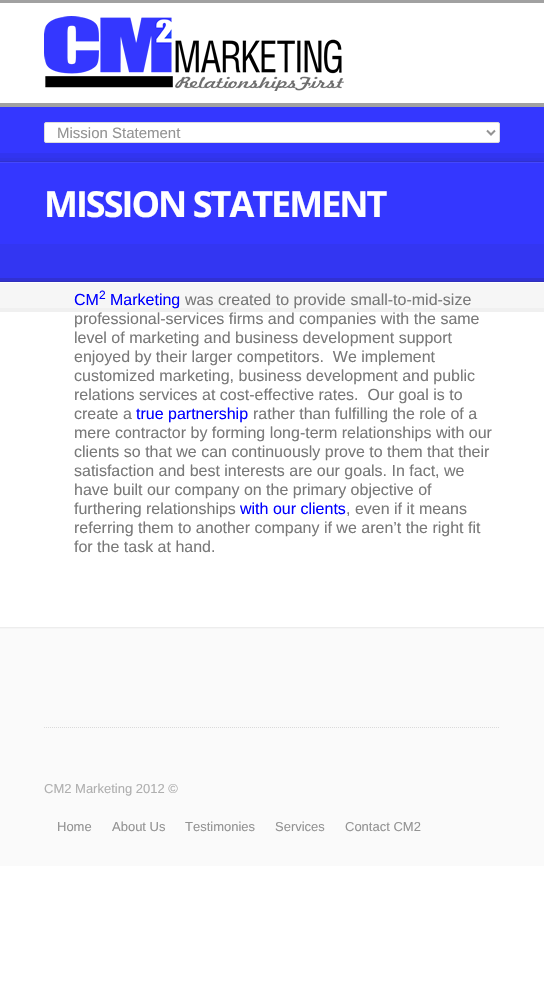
#include "include/core/SkBlurTypes.h"
#include "include/core/SkCanvas.h"
#include "include/core/SkData.h"
#include "include/core/SkFont.h"
#include "include/core/SkFontMgr.h"
#include "include/core/SkImage.h"
#include "include/core/SkMaskFilter.h"
#include "include/core/SkPaint.h"
#include "include/core/SkPathBuilder.h"
#include "include/core/SkTextBlob.h"
#include "include/effects/SkDashPathEffect.h"
#include "include/effects/SkGradientShader.h"
#include "include/utils/SkParsePath.h"

extern sk_sp<SkFontMgr> fontMgr;

void draw(SkCanvas* canvas) {
  SkPaint p;
  p.setAntiAlias(true);
  auto spacedText = [&](const char* s, float x, float y, const SkFont& font, const SkPaint& ink, float letter, float word) {
    std::vector<SkGlyphID> glyphs(font.countText(s, strlen(s), SkTextEncoding::kUTF8));
    std::vector<float> xs(glyphs.size());
    font.textToGlyphs(s, strlen(s), SkTextEncoding::kUTF8, glyphs);
    font.getXPos(glyphs, xs, x);
    float extra = 0;
    for (size_t i = 0; i < glyphs.size(); i++) {
      xs[i] += extra;
      extra += letter + word * (glyphs[i] == font.unicharToGlyph(' '));
    }
    canvas->drawTextBlob(SkTextBlob::MakeFromPosHGlyphs(glyphs, xs, y, font), 0, 0, ink);
  };
  canvas->clear(SK_ColorWHITE);
  p.setColor(SkColorSetRGB(161, 161, 161));
  canvas->drawRect(SkRect::MakeLTRB(0, 103, 544, 107), p);
  canvas->drawRect(SkRect::MakeLTRB(0, 0, 544, 3), p);
  canvas->drawImageRect(SkImages::DeferredFromEncodedData(SkData::MakeFromFileName("images/1.png")), SkRect::MakeLTRB(44, 16, 344, 91), SkSamplingOptions());
  p.setColor(SkColorSetRGB(52, 55, 255));
  canvas->drawRect(SkRect::MakeLTRB(0, 107, 544, 282), p);
  canvas->drawImageRect(SkImages::DeferredFromEncodedData(SkData::MakeFromFileName("images/2.png")), SkRect::MakeLTRB(0, 153, 544, 163), SkSamplingOptions());
  p.setColor(SK_ColorWHITE);
  canvas->drawRoundRect(SkRect::MakeLTRB(44.5f, 122.5f, 499.5f, 142.5f), 1.5f, 1.5f, p);
  p.setStyle(SkPaint::kStroke_Style);
  p.setStrokeWidth(1);
  p.setColor(SkColorSetRGB(220, 220, 220));
  canvas->drawRoundRect(SkRect::MakeLTRB(44.5f, 122.5f, 499.5f, 142.5f), 1.5f, 1.5f, p);
  p.setStrokeWidth(2);
  p.setColor(SkColorSetRGB(147, 147, 147));
  canvas->drawPath(SkPathBuilder().moveTo(487, 130.5f).lineTo(491, 134.5f).lineTo(495, 130.5f).detach(), p);
  canvas->drawImageRect(SkImages::DeferredFromEncodedData(SkData::MakeFromFileName("images/3.png")), SkRect::MakeLTRB(0, 244, 544, 282), SkSamplingOptions());
  p.setStyle(SkPaint::kFill_Style);
  p.setColor(SkColorSetRGB(246, 246, 246));
  canvas->drawRect(SkRect::MakeLTRB(0, 283, 544, 308), p);
  p.setColor(SkColorSetRGB(240, 240, 240));
  canvas->drawRect(SkRect::MakeLTRB(0, 308, 544, 312), p);
  p.setColor(SkColorSetRGB(250, 250, 250));
  canvas->drawRect(SkRect::MakeLTRB(0, 627, 544, 866), p);
  canvas->drawImageRect(SkImages::DeferredFromEncodedData(SkData::MakeFromFileName("images/4.png")), SkRect::MakeLTRB(0, 627, 544, 629), SkSamplingOptions());
  canvas->drawImageRect(SkImages::DeferredFromEncodedData(SkData::MakeFromFileName("images/5.png")), SkRect::MakeLTRB(44, 727, 499, 728), SkSamplingOptions());
  SkFont font1(fontMgr->matchFamilyStyle("Liberation Sans", SkFontStyle::Normal()), 15);
  font1.setSubpixel(true);
  p.setColor(SkColorSetRGB(147, 147, 147));
  canvas->drawString("Mission Statement", 57, 138, font1, p);
  SkFont font2(fontMgr->matchFamilyStyle("Open Sans", SkFontStyle::Bold()), 36);
  font2.setSubpixel(true);
  p.setColor(SK_ColorWHITE);
  spacedText("MISSION STATEMENT", 44, 217, font2, p, -2, 0);
  SkFont font3(fontMgr->matchFamilyStyle("Liberation Sans", SkFontStyle::Normal()), 16);
  font3.setSubpixel(true);
  p.setColor(SkColorSetRGB(0, 0, 255));
  canvas->drawString("CM", 74, 305, font3, p);
  SkFont font4(fontMgr->matchFamilyStyle("Liberation Sans", SkFontStyle::Normal()), 12);
  font4.setSubpixel(true);
  canvas->drawString("2", 99, 299, font4, p);
  canvas->drawString("Marketing", 110, 305, font3, p);
  p.setColor(SkColorSetRGB(121, 121, 121));
  canvas->drawString("was created to provide small-to-mid-size", 185, 305, font3, p);
  canvas->drawString("professional-services firms and companies with the same", 74, 324, font3, p);
  canvas->drawString("level of marketing and business development support", 74, 343, font3, p);
  canvas->drawString("enjoyed by their larger competitors.  We implement", 74, 362, font3, p);
  canvas->drawString("customized marketing, business development and public", 74, 381, font3, p);
  canvas->drawString("relations services at cost-effective rates.  Our goal is to", 74, 400, font3, p);
  canvas->drawString("create a", 74, 419, font3, p);
  p.setColor(SkColorSetRGB(0, 0, 255));
  canvas->drawString("true partnership", 136, 419, font3, p);
  p.setColor(SkColorSetRGB(121, 121, 121));
  canvas->drawString("rather than fulfilling the role of a", 253, 419, font3, p);
  canvas->drawString("mere contractor by forming long-term relationships with our", 74, 438, font3, p);
  canvas->drawString("clients so that we can continuously prove to them that their", 74, 457, font3, p);
  canvas->drawString("satisfaction and best interests are our goals. In fact, we", 74, 476, font3, p);
  canvas->drawString("have built our company on the primary objective of", 74, 495, font3, p);
  canvas->drawString("furthering relationships", 74, 514, font3, p);
  p.setColor(SkColorSetRGB(0, 0, 255));
  canvas->drawString("with our clients", 240, 514, font3, p);
  p.setColor(SkColorSetRGB(121, 121, 121));
  canvas->drawString(", even if it means", 346, 514, font3, p);
  canvas->drawString("referring them to another company if we aren’t the right fit", 74, 533, font3, p);
  canvas->drawString("for the task at hand.", 74, 552, font3, p);
  SkFont font5(fontMgr->matchFamilyStyle("Liberation Sans", SkFontStyle::Normal()), 13);
  font5.setSubpixel(true);
  p.setColor(SkColorSetRGB(175, 175, 175));
  canvas->drawString("CM2 Marketing 2012 ©", 44, 793, font5, p);
  p.setColor(SkColorSetRGB(147, 147, 147));
  canvas->drawString("Home", 57, 831, font5, p);
  canvas->drawString("About Us", 112, 831, font5, p);
  canvas->drawString("Testimonies", 185, 831, font5, p);
  canvas->drawString("Services", 275, 831, font5, p);
  canvas->drawString("Contact CM2", 345, 831, font5, p);
}
